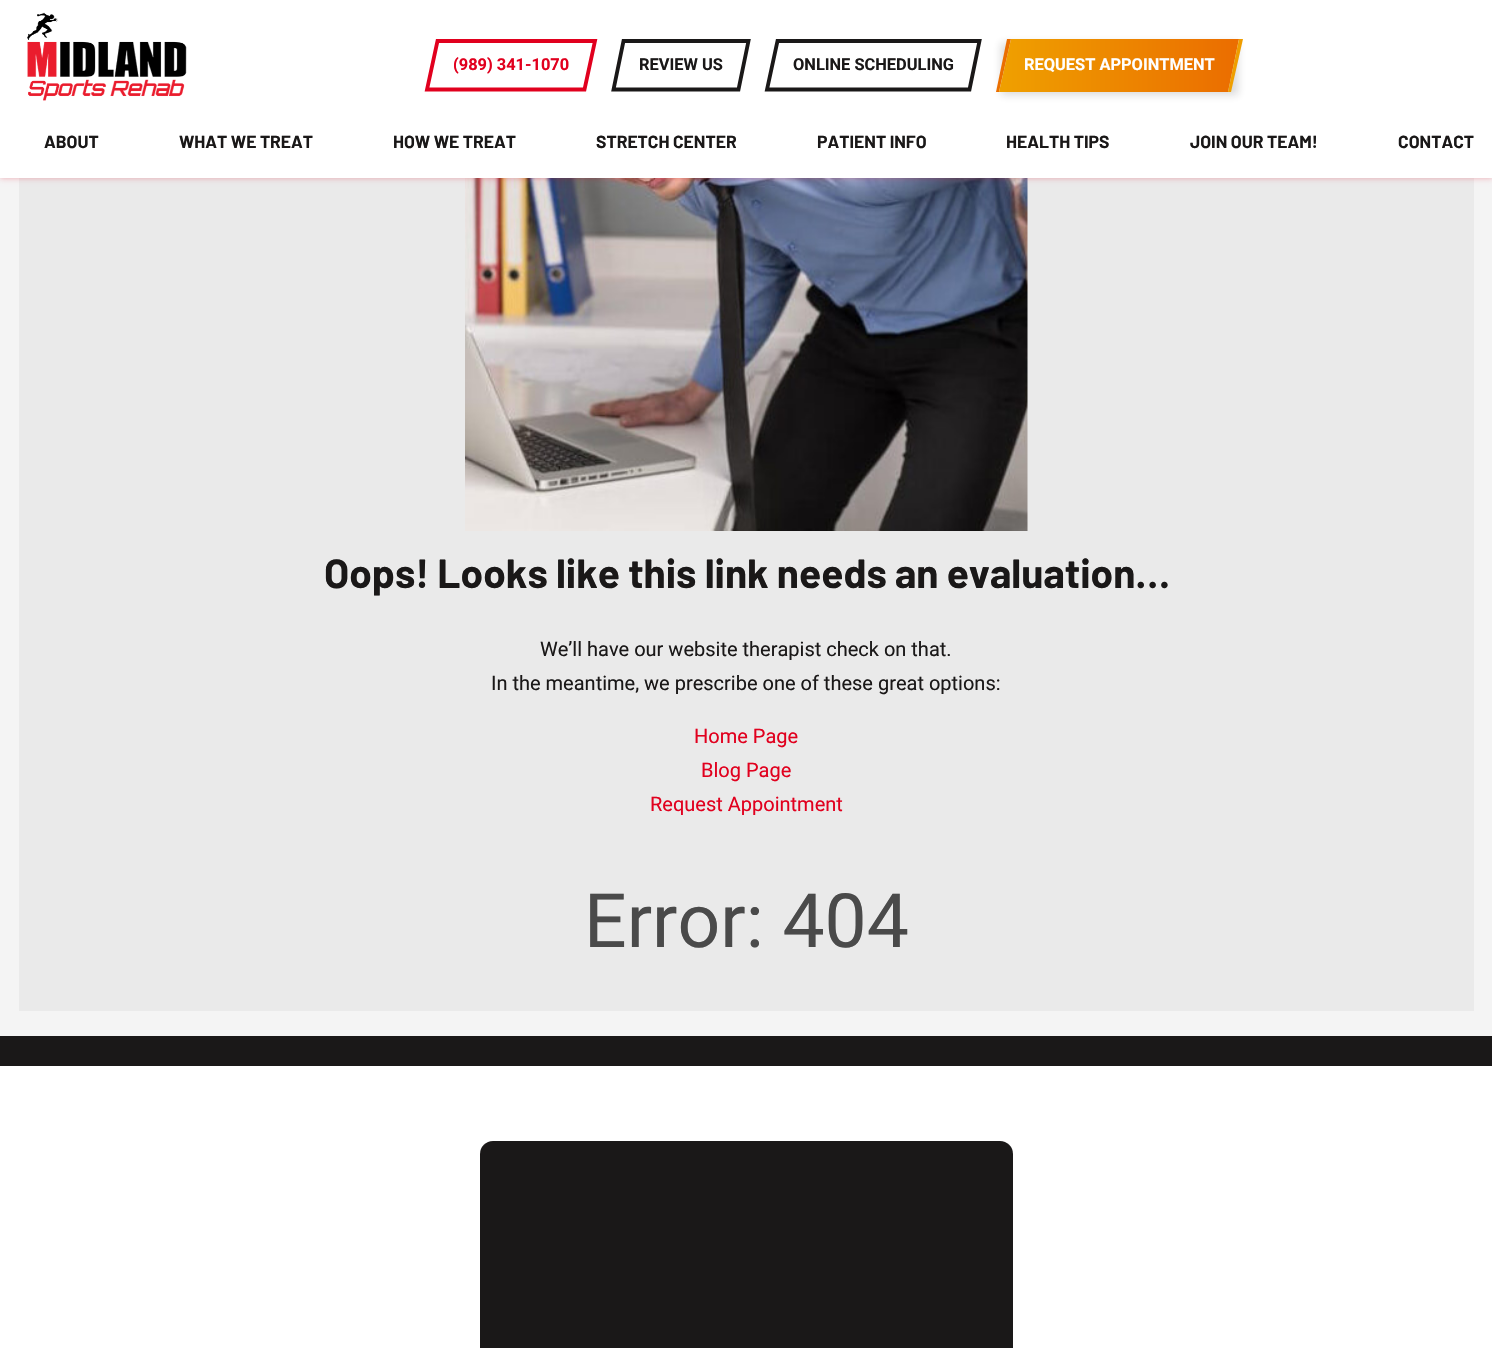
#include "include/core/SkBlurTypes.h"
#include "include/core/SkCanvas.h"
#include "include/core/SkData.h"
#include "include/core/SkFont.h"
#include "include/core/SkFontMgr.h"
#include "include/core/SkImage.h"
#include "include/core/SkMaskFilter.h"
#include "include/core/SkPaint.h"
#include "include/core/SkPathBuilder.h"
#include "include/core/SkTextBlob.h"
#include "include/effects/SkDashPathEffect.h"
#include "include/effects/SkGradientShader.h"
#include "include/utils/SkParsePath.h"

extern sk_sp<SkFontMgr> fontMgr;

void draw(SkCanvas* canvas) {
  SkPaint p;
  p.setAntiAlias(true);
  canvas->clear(SK_ColorWHITE);
  p.setColor(SkColorSetRGB(244, 244, 244));
  canvas->drawRect(SkRect::MakeLTRB(0, 178, 1492, 1036), p);
  p.setColor(SkColorSetRGB(234, 234, 234));
  canvas->drawRect(SkRect::MakeLTRB(19, 178, 1474, 1011), p);
  canvas->drawImageRect(SkImages::DeferredFromEncodedData(SkData::MakeFromFileName("images/2.png")), SkRect::MakeLTRB(465, 178, 1028, 531), SkSamplingOptions());
  p.setColor(SkColorSetARGB(77, 225, 0, 30));
  p.setMaskFilter(SkMaskFilter::MakeBlur(kNormal_SkBlurStyle, 3));
  canvas->drawRect(SkRect::MakeLTRB(0, 0, 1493, 178), p);
  p.setMaskFilter(nullptr);
  p.setColor(SK_ColorWHITE);
  canvas->drawRect(SkRect::MakeLTRB(0, 0, 1492, 178), p);
  canvas->drawImageRect(SkImages::DeferredFromEncodedData(SkData::MakeFromFileName("images/1.png")), SkRect::MakeLTRB(27, 12, 187, 101), SkSamplingOptions());
  p.setStyle(SkPaint::kStroke_Style);
  p.setStrokeWidth(3.8f);
  p.setColor(SkColorSetRGB(225, 0, 30));
  canvas->drawPath(SkPathBuilder().moveTo(437.5f, 41).lineTo(595, 41).lineTo(584.5f, 89.5f).lineTo(427, 89.5f).close().detach(), p);
  p.setColor(SkColorSetRGB(26, 24, 24));
  canvas->drawPath(SkPathBuilder().moveTo(623.5f, 41).lineTo(748.5f, 41).lineTo(738.5f, 89.5f).lineTo(613.5f, 89.5f).close().detach(), p);
  canvas->drawPath(SkPathBuilder().moveTo(777.5f, 41).lineTo(979.5f, 41).lineTo(969.5f, 89.5f).lineTo(767, 89.5f).close().detach(), p);
  p.setStyle(SkPaint::kFill_Style);
  p.setColor(SkColorSetARGB(41, 26, 24, 24));
  p.setMaskFilter(SkMaskFilter::MakeBlur(kNormal_SkBlurStyle, 4));
  canvas->drawRect(SkRect::MakeLTRB(1001, 43, 1238, 95), p);
  p.setMaskFilter(nullptr);
  {
    const SkColor colors[] = {SkColorSetRGB(239, 159, 0), SkColorSetRGB(235, 110, 0)};
    const float stops[] = {0, 1};
    const SkPoint ends[] = {{777, 65}, {1005, 65}};
    p.setShader(SkGradientShader::MakeLinear(ends, colors, stops, 2, SkTileMode::kClamp));
    p.setAlpha(255);
  }
  canvas->drawPath(SkPathBuilder().moveTo(999, 92).lineTo(996, 92).lineTo(1007, 39).lineTo(1011, 39).close().detach(), p);
  {
    const SkColor colors[] = {SkColorSetRGB(239, 159, 0), SkColorSetRGB(235, 110, 0)};
    const float stops[] = {0, 1};
    const SkPoint ends[] = {{1005, 65}, {1233, 65}};
    p.setShader(SkGradientShader::MakeLinear(ends, colors, stops, 2, SkTileMode::kClamp));
    p.setAlpha(255);
  }
  canvas->drawPath(SkPathBuilder().moveTo(1011, 39).lineTo(1239, 39).lineTo(1228, 92).lineTo(999, 92).close().detach(), p);
  {
    const SkColor colors[] = {SkColorSetRGB(239, 159, 0), SkColorSetRGB(235, 110, 0)};
    const float stops[] = {0, 1};
    const SkPoint ends[] = {{1233, 65}, {1461, 65}};
    p.setShader(SkGradientShader::MakeLinear(ends, colors, stops, 2, SkTileMode::kClamp));
    p.setAlpha(255);
  }
  canvas->drawPath(SkPathBuilder().moveTo(1239, 39).lineTo(1243, 39).lineTo(1231, 92).lineTo(1228, 92).close().detach(), p);
  p.setShader(nullptr);
  p.setColor(SkColorSetRGB(26, 24, 24));
  canvas->drawRect(SkRect::MakeLTRB(0, 1036, 1492, 1066), p);
  canvas->drawRoundRect(SkRect::MakeLTRB(480, 1141, 1013, 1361), 13, 13, p);
  SkFont font1(fontMgr->matchFamilyStyle("Roboto", SkFontStyle::Bold()), 16.4f);
  font1.setSubpixel(true);
  p.setColor(SkColorSetRGB(225, 0, 30));
  canvas->drawString("(989) 341-1070", 453, 70, font1, p);
  p.setColor(SkColorSetRGB(26, 24, 24));
  canvas->drawString("REVIEW US", 639, 70, font1, p);
  canvas->drawString("ONLINE SCHEDULING", 793, 70, font1, p);
  p.setColor(SK_ColorWHITE);
  canvas->drawString("REQUEST APPOINTMENT", 1024, 70, font1, p);
  SkFont font2(fontMgr->matchFamilyStyle("Barlow", SkFontStyle::Bold()), 17.5f);
  font2.setSubpixel(true);
  p.setColor(SkColorSetRGB(26, 24, 24));
  canvas->drawString("ABOUT", 44, 148, font2, p);
  canvas->drawString("WHAT WE TREAT", 179, 148, font2, p);
  canvas->drawString("HOW WE TREAT", 393, 148, font2, p);
  canvas->drawString("STRETCH CENTER", 596, 148, font2, p);
  canvas->drawString("PATIENT INFO", 817, 148, font2, p);
  canvas->drawString("HEALTH TIPS", 1006, 148, font2, p);
  canvas->drawString("JOIN OUR TEAM!", 1190, 148, font2, p);
  canvas->drawString("CONTACT", 1398, 148, font2, p);
  SkFont font3(fontMgr->matchFamilyStyle("Barlow", SkFontStyle::Bold()), 40.6f);
  font3.setSubpixel(true);
  canvas->drawString("Oops! Looks like this link needs an evaluation…", 324, 588, font3, p);
  SkFont font4(fontMgr->matchFamilyStyle("Roboto", SkFontStyle::Normal()), 20);
  font4.setSubpixel(true);
  canvas->drawString("We’ll have our website therapist check on that.", 540, 656, font4, p);
  canvas->drawString("In the meantime, we prescribe one of these great options:", 491, 690, font4, p);
  p.setColor(SkColorSetRGB(225, 0, 30));
  canvas->drawString("Home Page", 694, 743, font4, p);
  canvas->drawString("Blog Page", 701, 777, font4, p);
  canvas->drawString("Request Appointment", 650, 811, font4, p);
  SkFont font5(fontMgr->matchFamilyStyle("Roboto", SkFontStyle::Normal()), 75);
  font5.setSubpixel(true);
  p.setColor(SkColorSetRGB(74, 74, 74));
  canvas->drawString("Error: 404", 584, 947, font5, p);
}
